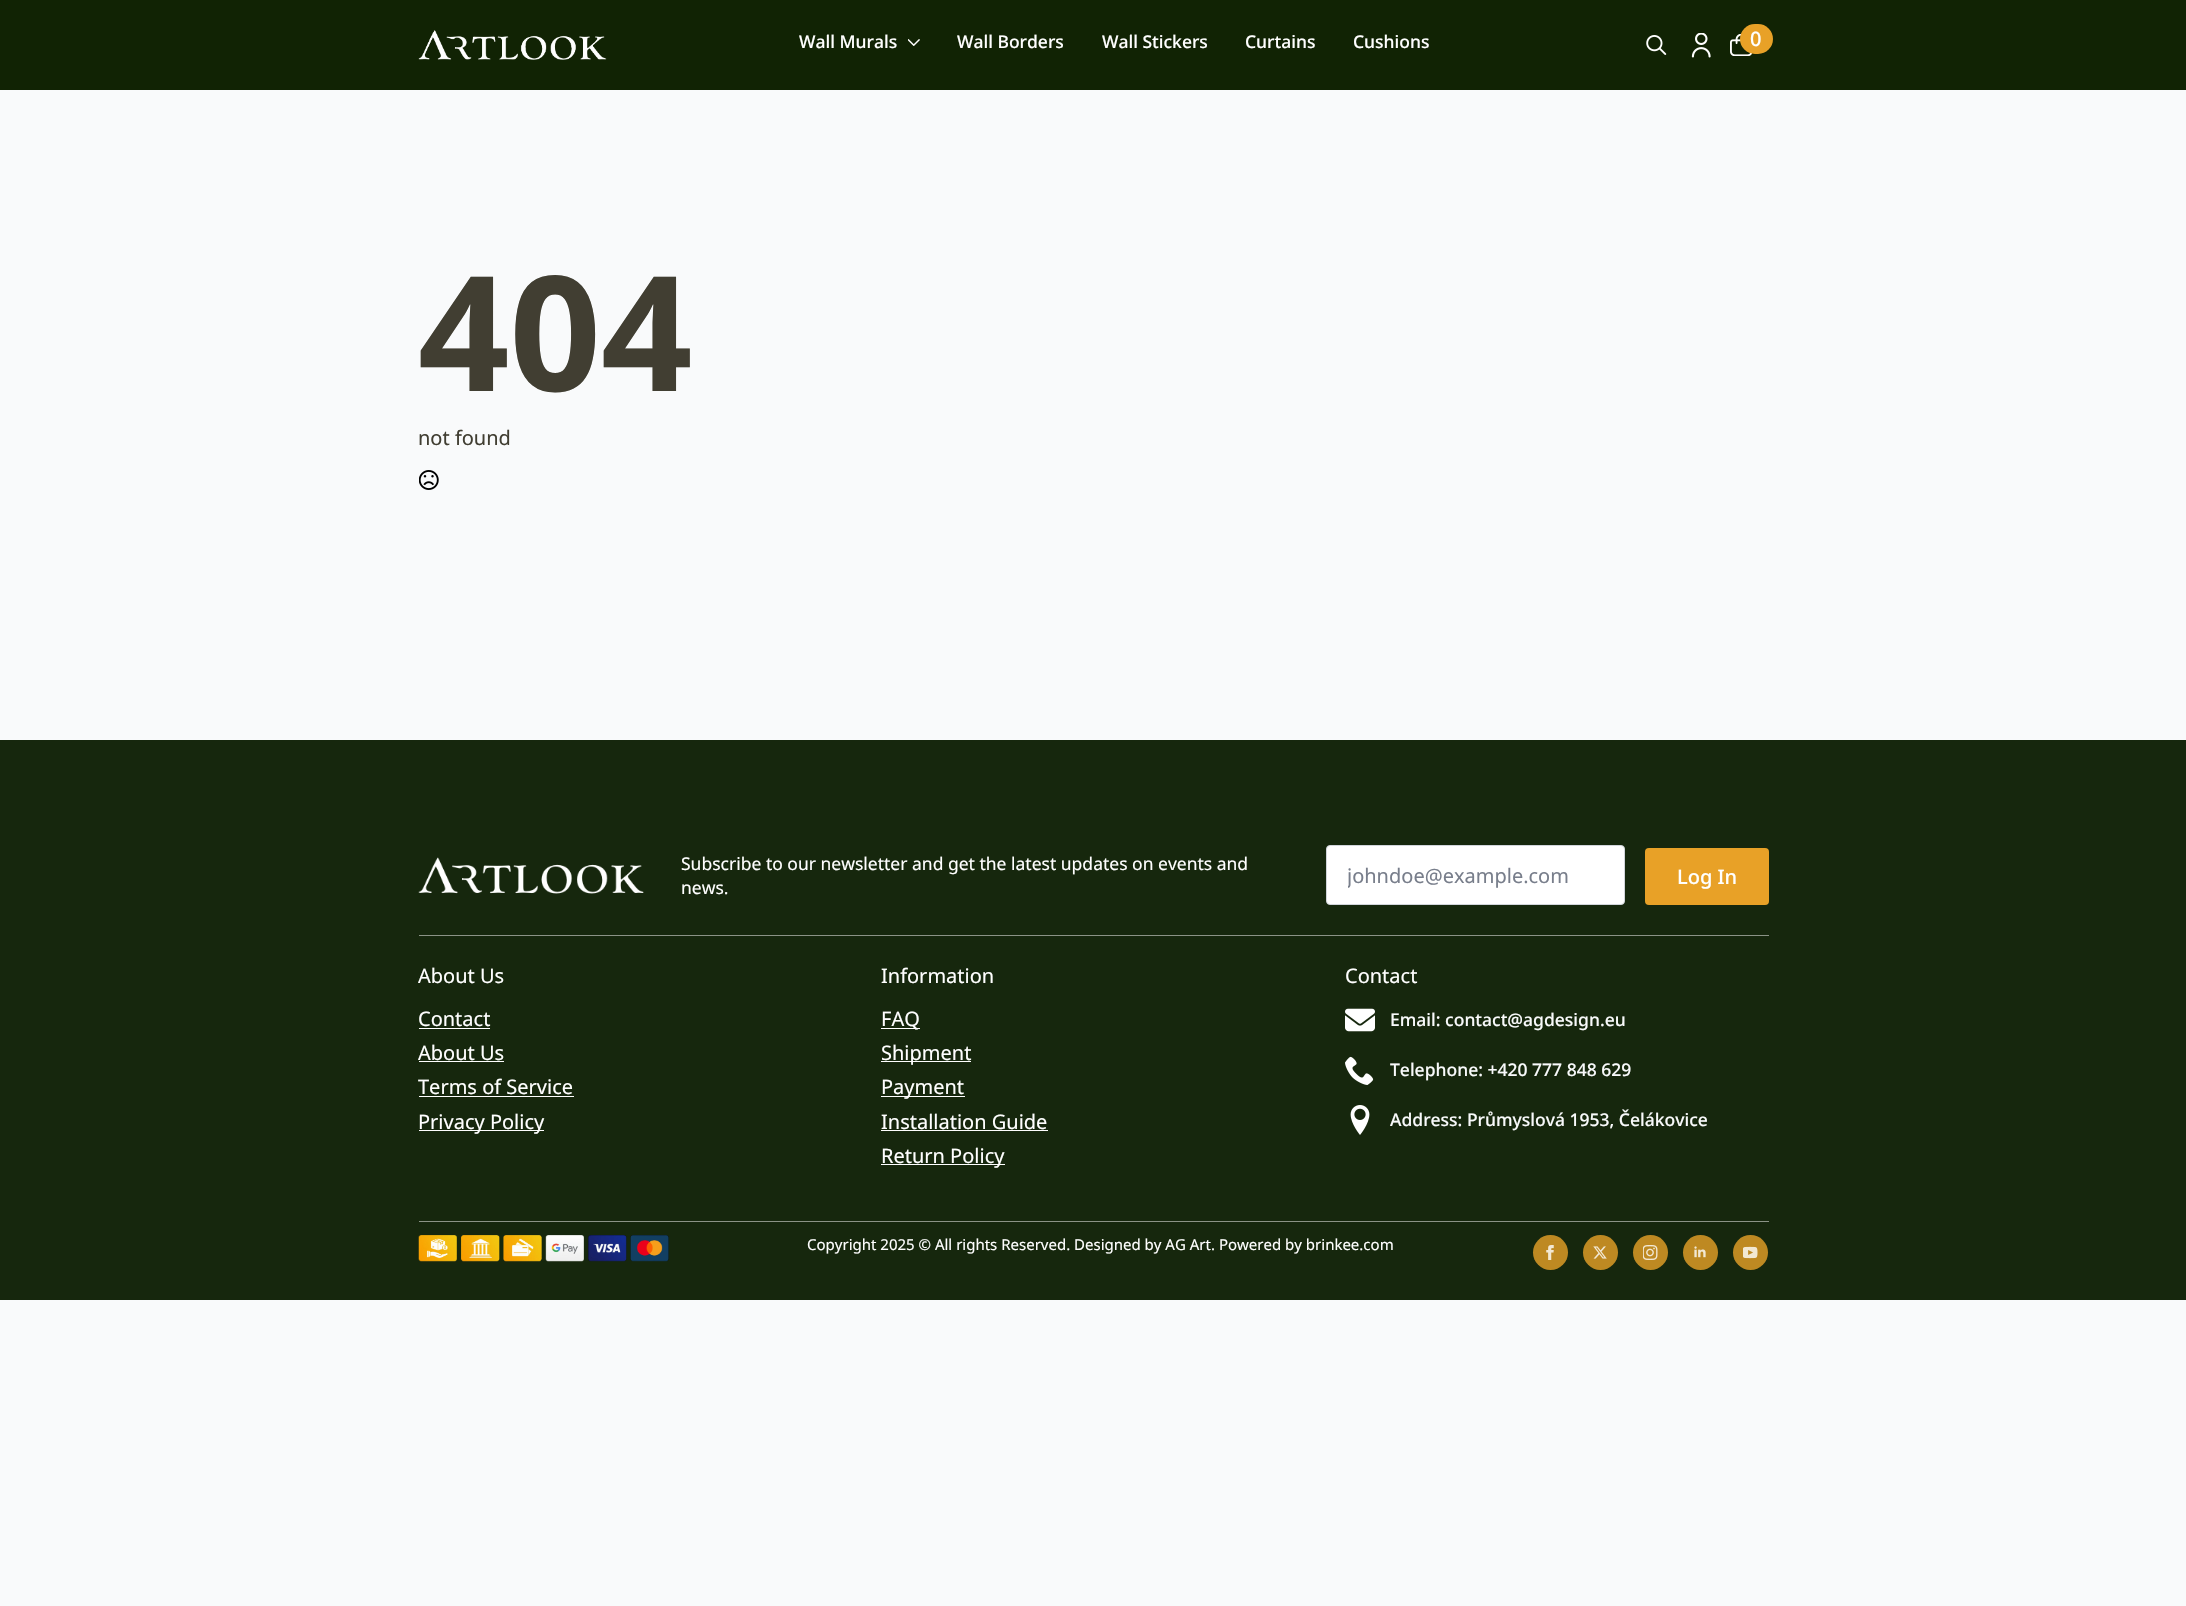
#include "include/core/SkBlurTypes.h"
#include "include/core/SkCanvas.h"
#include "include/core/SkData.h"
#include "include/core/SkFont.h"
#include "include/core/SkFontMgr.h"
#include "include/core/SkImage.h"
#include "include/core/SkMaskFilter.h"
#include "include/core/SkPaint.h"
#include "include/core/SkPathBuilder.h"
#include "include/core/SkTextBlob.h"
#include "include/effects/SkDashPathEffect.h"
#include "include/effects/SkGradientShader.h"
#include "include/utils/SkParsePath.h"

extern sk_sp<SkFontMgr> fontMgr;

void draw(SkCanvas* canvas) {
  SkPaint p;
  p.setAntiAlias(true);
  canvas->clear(SkColorSetRGB(249, 250, 251));
  p.setColor(SkColorSetRGB(17, 35, 4));
  canvas->drawRect(SkRect::MakeLTRB(0, 0, 2186, 90), p);
  canvas->drawImageRect(SkImages::DeferredFromEncodedData(SkData::MakeFromFileName("images/1.png")), SkRect::MakeLTRB(418, 30, 607, 60), SkSamplingOptions());
  canvas->drawImageRect(SkImages::DeferredFromEncodedData(SkData::MakeFromFileName("images/2.png")), SkRect::MakeLTRB(908, 39, 920, 46), SkSamplingOptions());
  canvas->drawImageRect(SkImages::DeferredFromEncodedData(SkData::MakeFromFileName("images/3.png")), SkRect::MakeLTRB(1646, 35, 1667, 55), SkSamplingOptions());
  canvas->drawImageRect(SkImages::DeferredFromEncodedData(SkData::MakeFromFileName("images/4.png")), SkRect::MakeLTRB(1691, 33, 1711, 58), SkSamplingOptions());
  canvas->drawImageRect(SkImages::DeferredFromEncodedData(SkData::MakeFromFileName("images/5.png")), SkRect::MakeLTRB(1730, 34, 1753, 56), SkSamplingOptions());
  p.setColor(SkColorSetRGB(232, 161, 39));
  canvas->drawRoundRect(SkRect::MakeLTRB(1740, 24, 1773, 54), 15, 15, p);
  canvas->drawImageRect(SkImages::DeferredFromEncodedData(SkData::MakeFromFileName("images/6.png")), SkRect::MakeLTRB(419, 470, 439, 490), SkSamplingOptions());
  p.setColor(SkColorSetRGB(22, 39, 13));
  canvas->drawRect(SkRect::MakeLTRB(0, 740, 2186, 1300), p);
  canvas->drawImageRect(SkImages::DeferredFromEncodedData(SkData::MakeFromFileName("images/7.png")), SkRect::MakeLTRB(418, 857, 644, 894), SkSamplingOptions());
  p.setColor(SK_ColorWHITE);
  canvas->drawRoundRect(SkRect::MakeLTRB(1326.5f, 845.5f, 1624.5f, 904.5f), 3.5f, 3.5f, p);
  p.setStyle(SkPaint::kStroke_Style);
  p.setStrokeWidth(1);
  p.setColor(SkColorSetRGB(209, 213, 219));
  canvas->drawRoundRect(SkRect::MakeLTRB(1326.5f, 845.5f, 1624.5f, 904.5f), 3.5f, 3.5f, p);
  p.setStyle(SkPaint::kFill_Style);
  p.setColor(SkColorSetRGB(232, 161, 39));
  canvas->drawRoundRect(SkRect::MakeLTRB(1645, 848, 1769, 905), 4, 4, p);
  p.setColor(SkColorSetRGB(139, 147, 134));
  canvas->drawRect(SkRect::MakeLTRB(419, 935, 1769, 936), p);
  p.setColor(SK_ColorWHITE);
  canvas->drawRect(SkRect::MakeLTRB(419, 1028, 490, 1029), p);
  canvas->drawRect(SkRect::MakeLTRB(419, 1061, 504, 1062), p);
  canvas->drawRect(SkRect::MakeLTRB(419, 1096, 574, 1097), p);
  canvas->drawRect(SkRect::MakeLTRB(419, 1130, 544, 1131), p);
  canvas->drawRect(SkRect::MakeLTRB(881, 1028, 920, 1029), p);
  canvas->drawRect(SkRect::MakeLTRB(881, 1061, 971, 1062), p);
  canvas->drawRect(SkRect::MakeLTRB(881, 1096, 965, 1097), p);
  canvas->drawRect(SkRect::MakeLTRB(881, 1130, 1048, 1131), p);
  canvas->drawRect(SkRect::MakeLTRB(881, 1164, 1005, 1165), p);
  canvas->drawImageRect(SkImages::DeferredFromEncodedData(SkData::MakeFromFileName("images/8.png")), SkRect::MakeLTRB(1345, 1008, 1375, 1032), SkSamplingOptions());
  canvas->drawImageRect(SkImages::DeferredFromEncodedData(SkData::MakeFromFileName("images/9.png")), SkRect::MakeLTRB(1345, 1056, 1374, 1085), SkSamplingOptions());
  canvas->drawImageRect(SkImages::DeferredFromEncodedData(SkData::MakeFromFileName("images/10.png")), SkRect::MakeLTRB(1350, 1105, 1370, 1135), SkSamplingOptions());
  p.setColor(SkColorSetRGB(139, 147, 134));
  canvas->drawRect(SkRect::MakeLTRB(419, 1221, 1769, 1222), p);
  canvas->drawImageRect(SkImages::DeferredFromEncodedData(SkData::MakeFromFileName("images/11.png")), SkRect::MakeLTRB(418, 1235, 669, 1262), SkSamplingOptions());
  p.setColor(SkColorSetRGB(190, 137, 34));
  canvas->drawCircle(1550.5f, 1252.5f, 17.5f, p);
  canvas->drawImageRect(SkImages::DeferredFromEncodedData(SkData::MakeFromFileName("images/12.png")), SkRect::MakeLTRB(1546, 1245, 1554, 1260), SkSamplingOptions());
  canvas->drawCircle(1600.5f, 1252.5f, 17.5f, p);
  canvas->drawImageRect(SkImages::DeferredFromEncodedData(SkData::MakeFromFileName("images/13.png")), SkRect::MakeLTRB(1593, 1246, 1607, 1259), SkSamplingOptions());
  canvas->drawCircle(1650.5f, 1252.5f, 17.5f, p);
  canvas->drawImageRect(SkImages::DeferredFromEncodedData(SkData::MakeFromFileName("images/14.png")), SkRect::MakeLTRB(1643, 1245, 1658, 1260), SkSamplingOptions());
  canvas->drawCircle(1700.5f, 1252.5f, 17.5f, p);
  canvas->drawImageRect(SkImages::DeferredFromEncodedData(SkData::MakeFromFileName("images/15.png")), SkRect::MakeLTRB(1694, 1246, 1706, 1258), SkSamplingOptions());
  canvas->drawCircle(1750.5f, 1252.5f, 17.5f, p);
  canvas->drawImageRect(SkImages::DeferredFromEncodedData(SkData::MakeFromFileName("images/16.png")), SkRect::MakeLTRB(1743, 1246, 1758, 1259), SkSamplingOptions());
  SkFont font1(fontMgr->matchFamilyStyle("Noto Sans", SkFontStyle(500, SkFontStyle::kNormal_Width, SkFontStyle::kUpright_Slant)), 17.5f);
  font1.setSubpixel(true);
  p.setColor(SK_ColorWHITE);
  canvas->drawString("Wall Murals", 799, 48, font1, p);
  canvas->drawString("Wall Borders", 957, 48, font1, p);
  canvas->drawString("Wall Stickers", 1102, 48, font1, p);
  canvas->drawString("Curtains", 1245, 48, font1, p);
  canvas->drawString("Cushions", 1353, 48, font1, p);
  SkFont font2(fontMgr->matchFamilyStyle("Noto Sans", SkFontStyle(500, SkFontStyle::kNormal_Width, SkFontStyle::kUpright_Slant)), 20);
  font2.setSubpixel(true);
  canvas->drawString("0", 1750, 46, font2, p);
  SkFont font3(fontMgr->matchFamilyStyle("Noto Sans", SkFontStyle::Bold()), 160);
  font3.setSubpixel(true);
  p.setColor(SkColorSetRGB(65, 62, 50));
  canvas->drawString("404", 418, 391, font3, p);
  SkFont font4(fontMgr->matchFamilyStyle("Noto Sans", SkFontStyle::Normal()), 20);
  font4.setSubpixel(true);
  canvas->drawString("not found", 418, 445, font4, p);
  SkFont font5(fontMgr->matchFamilyStyle("Noto Sans", SkFontStyle::Normal()), 17.5f);
  font5.setSubpixel(true);
  p.setColor(SK_ColorWHITE);
  canvas->drawString("Subscribe to our newsletter and get the latest updates on events and", 681, 870, font5, p);
  canvas->drawString("news.", 681, 894, font5, p);
  canvas->save();
  canvas->clipRect(SkRect::MakeLTRB(1348, 861, 1604, 889));
  p.setColor(SkColorSetRGB(120, 126, 139));
  canvas->drawString("johndoe@example.com", 1347, 883, font4, p);
  canvas->restore();
  p.setColor(SK_ColorWHITE);
  canvas->drawString("Log In", 1677, 884, font2, p);
  canvas->drawString("About Us", 418, 983, font4, p);
  canvas->drawString("Contact", 418, 1026, font4, p);
  canvas->drawString("About Us", 418, 1060, font4, p);
  canvas->drawString("Terms of Service", 418, 1094, font4, p);
  canvas->drawString("Privacy Policy", 418, 1129, font4, p);
  canvas->drawString("Information", 881, 983, font4, p);
  canvas->drawString("FAQ", 881, 1026, font4, p);
  canvas->drawString("Shipment", 881, 1060, font4, p);
  canvas->drawString("Payment", 881, 1094, font4, p);
  canvas->drawString("Installation Guide", 881, 1129, font4, p);
  canvas->drawString("Return Policy", 881, 1163, font4, p);
  canvas->drawString("Contact", 1345, 983, font4, p);
  p.setColor(SkColorSetRGB(249, 250, 251));
  canvas->drawString("Email: contact@agdesign.eu", 1390, 1026, font1, p);
  canvas->drawString("Telephone: +420 777 848 629", 1390, 1076, font1, p);
  canvas->drawString("Address: Průmyslová 1953, Čelákovice", 1390, 1126, font1, p);
  SkFont font6(fontMgr->matchFamilyStyle("Noto Sans", SkFontStyle::Normal()), 15);
  font6.setSubpixel(true);
  p.setColor(SK_ColorWHITE);
  canvas->drawString("Copyright 2025 © All rights Reserved. Designed by AG Art. Powered by brinkee.com", 807, 1250, font6, p);
}
